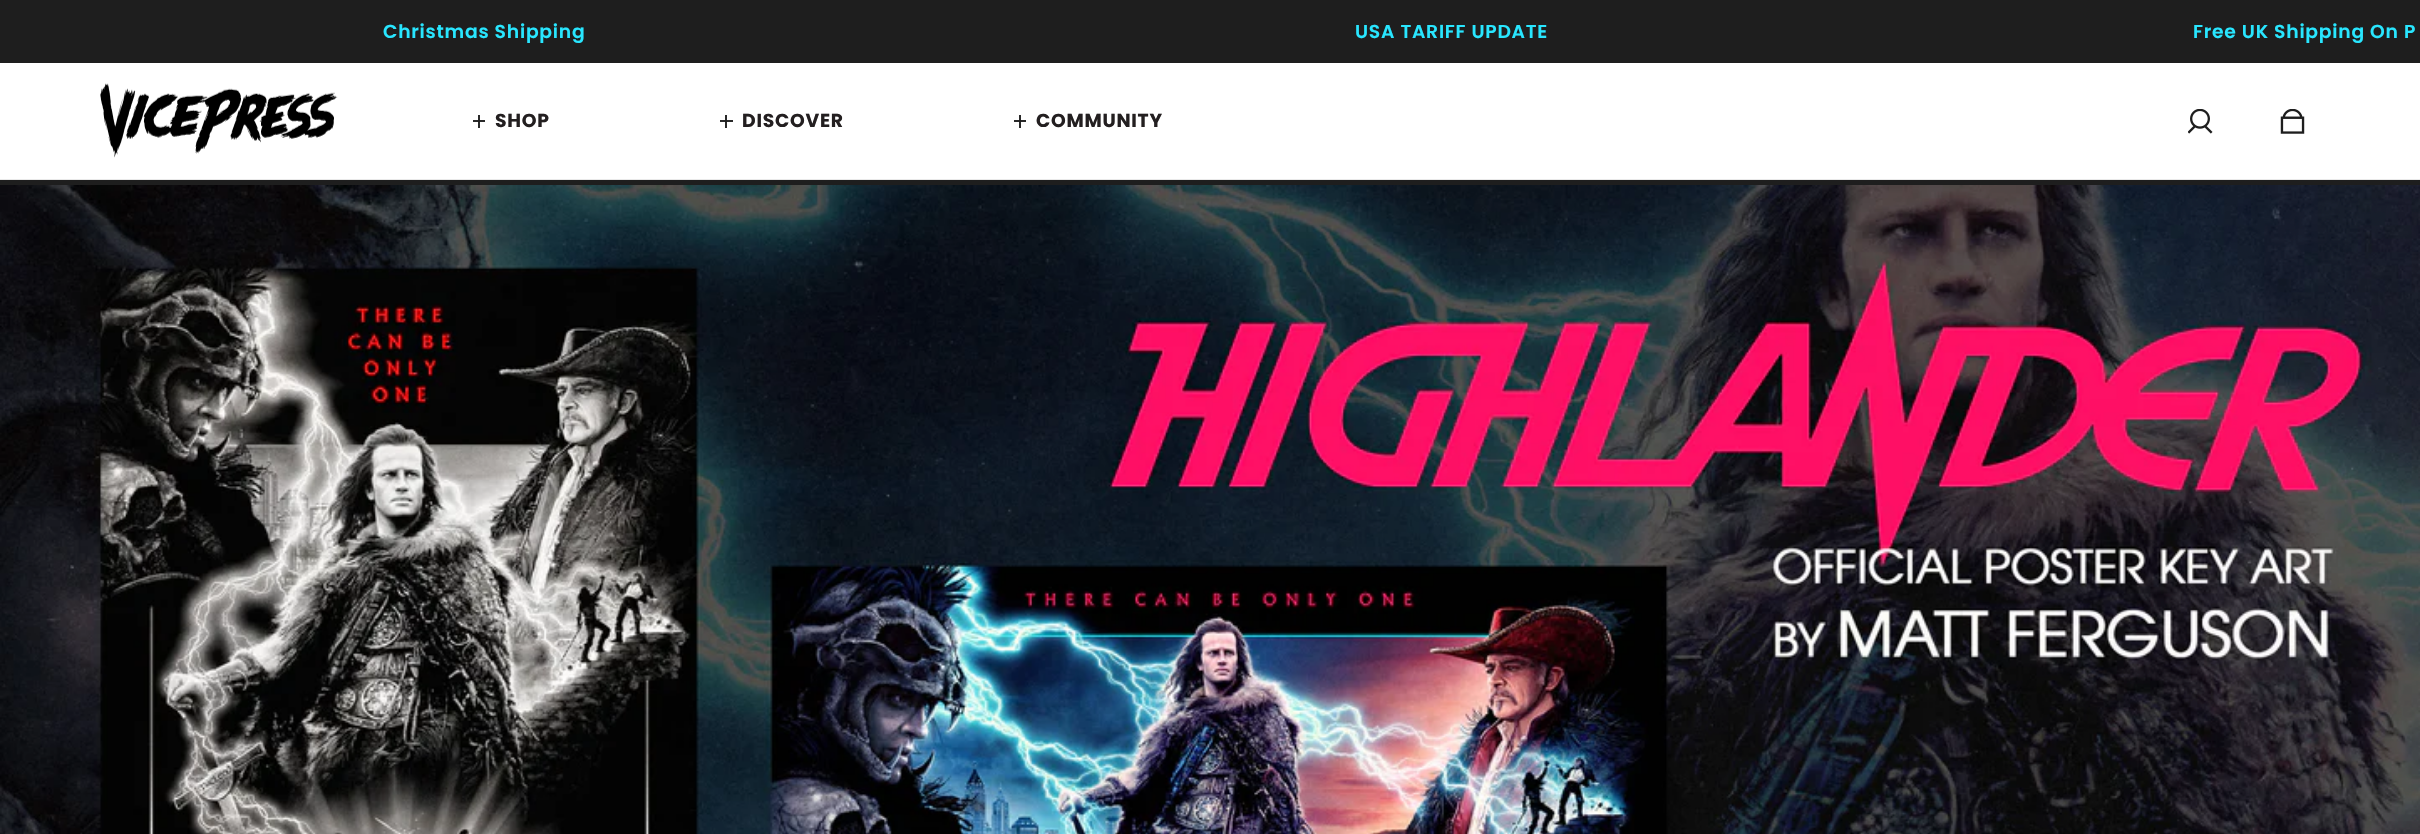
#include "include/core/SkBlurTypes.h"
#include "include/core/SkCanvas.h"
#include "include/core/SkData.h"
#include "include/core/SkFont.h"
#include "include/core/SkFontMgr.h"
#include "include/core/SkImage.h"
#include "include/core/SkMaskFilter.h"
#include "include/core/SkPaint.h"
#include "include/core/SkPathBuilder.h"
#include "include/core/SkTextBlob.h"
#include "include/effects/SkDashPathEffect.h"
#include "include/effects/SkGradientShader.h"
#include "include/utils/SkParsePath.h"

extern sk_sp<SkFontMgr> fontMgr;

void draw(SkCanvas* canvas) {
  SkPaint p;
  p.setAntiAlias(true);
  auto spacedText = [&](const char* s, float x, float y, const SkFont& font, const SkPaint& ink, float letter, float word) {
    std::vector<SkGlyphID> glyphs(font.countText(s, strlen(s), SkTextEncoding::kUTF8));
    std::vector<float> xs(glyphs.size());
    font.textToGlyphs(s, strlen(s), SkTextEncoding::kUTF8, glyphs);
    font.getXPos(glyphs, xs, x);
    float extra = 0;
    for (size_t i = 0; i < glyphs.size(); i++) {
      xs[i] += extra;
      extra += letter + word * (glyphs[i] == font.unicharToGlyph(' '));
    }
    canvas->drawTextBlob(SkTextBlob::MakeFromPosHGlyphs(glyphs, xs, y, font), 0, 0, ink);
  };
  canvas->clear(SkColorSetRGB(30, 30, 30));
  p.setColor(SK_ColorWHITE);
  canvas->drawRect(SkRect::MakeLTRB(0, 63, 2420, 179), p);
  p.setColor(SkColorSetRGB(41, 41, 41));
  canvas->drawRect(SkRect::MakeLTRB(1014, 120, 1026, 122), p);
  canvas->drawRect(SkRect::MakeLTRB(720, 120, 733, 122), p);
  canvas->drawRect(SkRect::MakeLTRB(473, 120, 485, 122), p);
  p.setColor(SkColorSetRGB(233, 233, 233));
  canvas->drawRect(SkRect::MakeLTRB(0, 179, 2420, 180), p);
  canvas->drawImageRect(SkImages::DeferredFromEncodedData(SkData::MakeFromFileName("images/1.png")), SkRect::MakeLTRB(100, 83, 338, 158), SkSamplingOptions());
  p.setColor(SkColorSetRGB(41, 41, 41));
  canvas->drawRect(SkRect::MakeLTRB(478, 115, 480, 128), p);
  p.setColor(SkColorSetRGB(31, 31, 31));
  canvas->drawRect(SkRect::MakeLTRB(478, 120, 480, 122), p);
  p.setColor(SkColorSetRGB(41, 41, 41));
  canvas->drawRect(SkRect::MakeLTRB(725, 115, 727, 128), p);
  p.setColor(SkColorSetRGB(31, 31, 31));
  canvas->drawRect(SkRect::MakeLTRB(725, 120, 727, 122), p);
  p.setColor(SkColorSetRGB(41, 41, 41));
  canvas->drawRect(SkRect::MakeLTRB(1019, 115, 1021, 128), p);
  p.setColor(SkColorSetRGB(31, 31, 31));
  canvas->drawRect(SkRect::MakeLTRB(1019, 120, 1021, 122), p);
  canvas->drawImageRect(SkImages::DeferredFromEncodedData(SkData::MakeFromFileName("images/2.png")), SkRect::MakeLTRB(2188, 109, 2213, 134), SkSamplingOptions());
  canvas->drawImageRect(SkImages::DeferredFromEncodedData(SkData::MakeFromFileName("images/3.png")), SkRect::MakeLTRB(2280, 109, 2305, 134), SkSamplingOptions());
  canvas->drawImageRect(SkImages::DeferredFromEncodedData(SkData::MakeFromFileName("images/4.png")), SkRect::MakeLTRB(0, 185, 2420, 834), SkSamplingOptions());
  SkFont font1(fontMgr->matchFamilyStyle("Poppins", SkFontStyle(600, SkFontStyle::kNormal_Width, SkFontStyle::kUpright_Slant)), 18.75f);
  font1.setSubpixel(true);
  p.setColor(SkColorSetRGB(40, 230, 255));
  spacedText("Christmas Shipping", 383, 38, font1, p, 0.75f, 0);
  spacedText("USA TARIFF UPDATE", 1355, 38, font1, p, 0.75f, 0);
  spacedText("Free UK Shipping On P", 2193, 38, font1, p, 0.75f, 0);
  SkFont font2(fontMgr->matchFamilyStyle("Poppins", SkFontStyle::Bold()), 18.75f);
  font2.setSubpixel(true);
  p.setColor(SkColorSetRGB(35, 31, 32));
  spacedText("SHOP", 495, 127, font2, p, 0.75f, 0);
  spacedText("DISCOVER", 742, 127, font2, p, 0.75f, 0);
  spacedText("COMMUNITY", 1036, 127, font2, p, 0.75f, 0);
}
